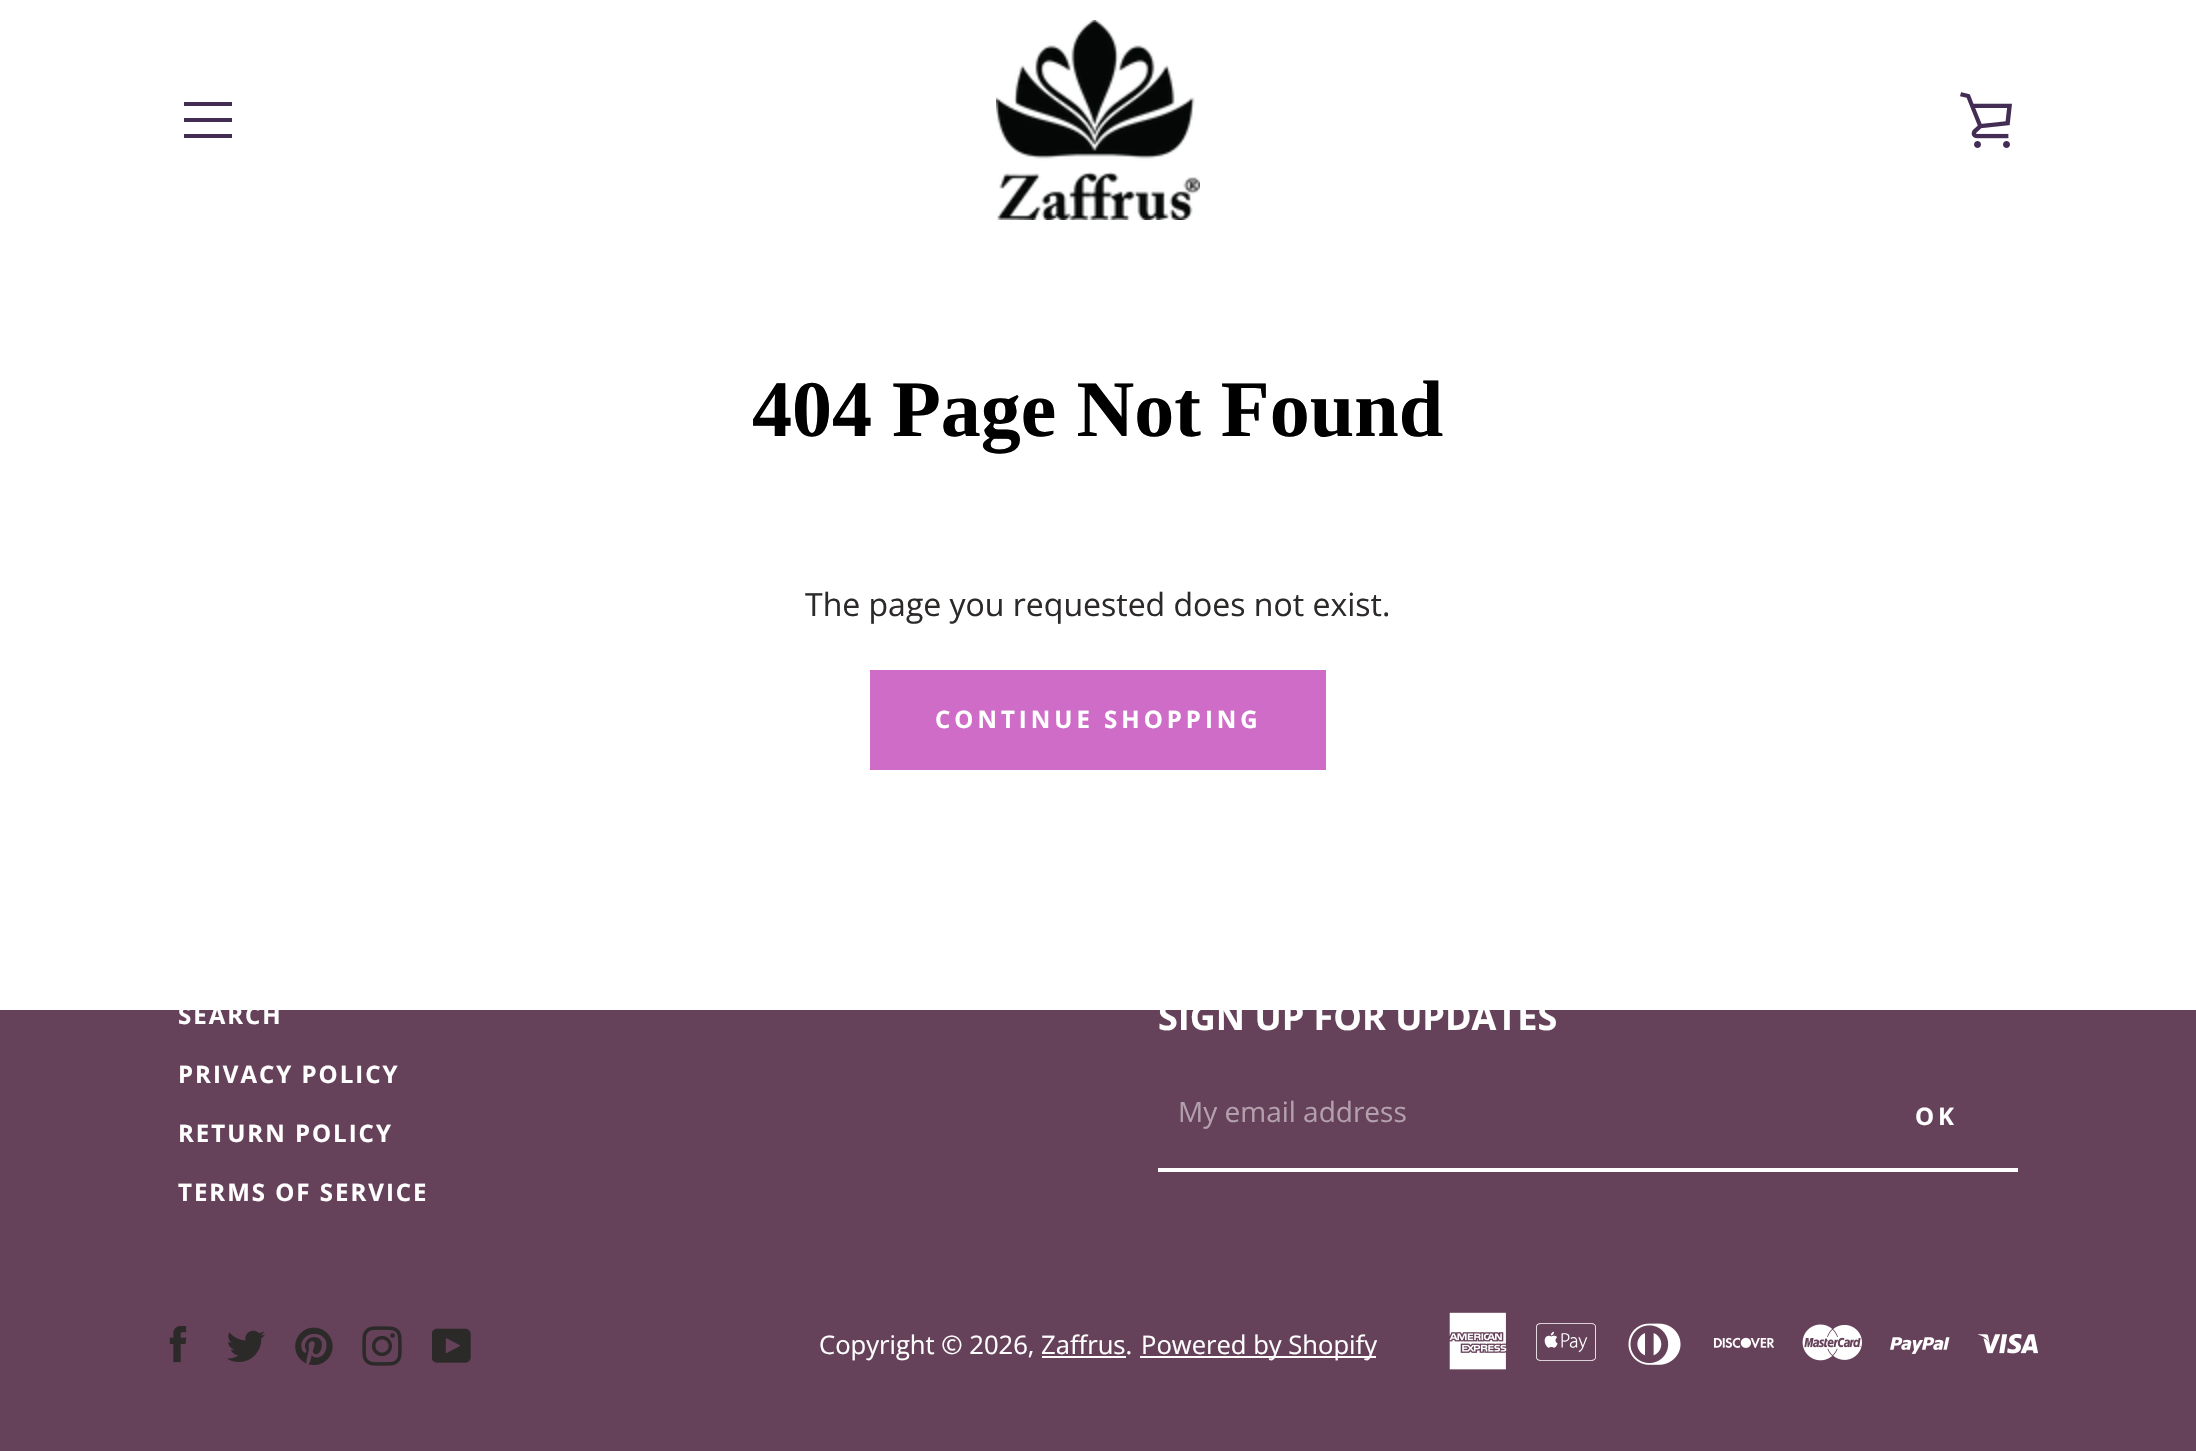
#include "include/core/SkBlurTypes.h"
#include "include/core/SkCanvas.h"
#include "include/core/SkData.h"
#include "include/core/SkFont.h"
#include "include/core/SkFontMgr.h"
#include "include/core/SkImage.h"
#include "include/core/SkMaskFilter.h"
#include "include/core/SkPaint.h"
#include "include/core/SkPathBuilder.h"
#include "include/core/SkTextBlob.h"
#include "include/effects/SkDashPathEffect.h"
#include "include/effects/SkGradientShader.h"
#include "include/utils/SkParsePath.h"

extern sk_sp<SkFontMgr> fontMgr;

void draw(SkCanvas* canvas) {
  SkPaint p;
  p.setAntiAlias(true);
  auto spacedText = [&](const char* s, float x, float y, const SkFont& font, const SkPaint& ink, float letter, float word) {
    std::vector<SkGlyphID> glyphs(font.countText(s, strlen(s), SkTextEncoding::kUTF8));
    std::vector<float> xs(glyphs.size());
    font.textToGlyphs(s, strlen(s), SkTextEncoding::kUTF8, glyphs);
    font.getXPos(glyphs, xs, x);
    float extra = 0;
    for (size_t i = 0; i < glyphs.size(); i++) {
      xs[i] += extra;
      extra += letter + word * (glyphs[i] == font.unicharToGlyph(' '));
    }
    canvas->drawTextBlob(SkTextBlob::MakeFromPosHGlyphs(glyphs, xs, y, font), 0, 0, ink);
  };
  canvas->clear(SkColorSetRGB(102, 65, 90));
  p.setColor(SK_ColorWHITE);
  canvas->drawRect(SkRect::MakeLTRB(0, 0, 2196, 1010), p);
  p.setColor(SkColorSetRGB(68, 45, 85));
  canvas->drawRect(SkRect::MakeLTRB(184, 102, 232, 106), p);
  canvas->drawRect(SkRect::MakeLTRB(184, 118, 232, 122), p);
  canvas->drawRect(SkRect::MakeLTRB(184, 134, 232, 138), p);
  canvas->drawImageRect(SkImages::DeferredFromEncodedData(SkData::MakeFromFileName("images/1.png")), SkRect::MakeLTRB(996, 20, 1200, 220), SkSamplingOptions());
  canvas->drawImageRect(SkImages::DeferredFromEncodedData(SkData::MakeFromFileName("images/2.png")), SkRect::MakeLTRB(1960, 92, 2012, 148), SkSamplingOptions());
  p.setColor(SkColorSetRGB(206, 108, 200));
  canvas->drawRect(SkRect::MakeLTRB(870, 670, 1326, 770), p);
  p.setColor(SK_ColorWHITE);
  canvas->drawRect(SkRect::MakeLTRB(1158, 1168, 2018, 1172), p);
  canvas->drawImageRect(SkImages::DeferredFromEncodedData(SkData::MakeFromFileName("images/3.png")), SkRect::MakeLTRB(169, 1326, 187, 1363), SkSamplingOptions());
  canvas->drawImageRect(SkImages::DeferredFromEncodedData(SkData::MakeFromFileName("images/4.png")), SkRect::MakeLTRB(227, 1330, 265, 1362), SkSamplingOptions());
  canvas->drawImageRect(SkImages::DeferredFromEncodedData(SkData::MakeFromFileName("images/5.png")), SkRect::MakeLTRB(295, 1327, 333, 1365), SkSamplingOptions());
  canvas->drawImageRect(SkImages::DeferredFromEncodedData(SkData::MakeFromFileName("images/6.png")), SkRect::MakeLTRB(362, 1326, 402, 1366), SkSamplingOptions());
  canvas->drawImageRect(SkImages::DeferredFromEncodedData(SkData::MakeFromFileName("images/7.png")), SkRect::MakeLTRB(432, 1328, 471, 1363), SkSamplingOptions());
  canvas->drawRect(SkRect::MakeLTRB(1042, 1356, 1126, 1358), p);
  canvas->drawRect(SkRect::MakeLTRB(1140, 1356, 1376, 1358), p);
  canvas->drawImageRect(SkImages::DeferredFromEncodedData(SkData::MakeFromFileName("images/8.png")), SkRect::MakeLTRB(1449, 1312, 1507, 1370), SkSamplingOptions());
  canvas->drawImageRect(SkImages::DeferredFromEncodedData(SkData::MakeFromFileName("images/9.png")), SkRect::MakeLTRB(1536, 1323, 1596, 1361), SkSamplingOptions());
  canvas->drawImageRect(SkImages::DeferredFromEncodedData(SkData::MakeFromFileName("images/10.png")), SkRect::MakeLTRB(1628, 1323, 1681, 1365), SkSamplingOptions());
  canvas->drawImageRect(SkImages::DeferredFromEncodedData(SkData::MakeFromFileName("images/11.png")), SkRect::MakeLTRB(1714, 1337, 1774, 1348), SkSamplingOptions());
  canvas->drawImageRect(SkImages::DeferredFromEncodedData(SkData::MakeFromFileName("images/12.png")), SkRect::MakeLTRB(1802, 1324, 1862, 1361), SkSamplingOptions());
  canvas->drawImageRect(SkImages::DeferredFromEncodedData(SkData::MakeFromFileName("images/13.png")), SkRect::MakeLTRB(1890, 1337, 1950, 1354), SkSamplingOptions());
  canvas->drawImageRect(SkImages::DeferredFromEncodedData(SkData::MakeFromFileName("images/14.png")), SkRect::MakeLTRB(1978, 1333, 2038, 1354), SkSamplingOptions());
  SkFont font1(fontMgr->matchFamilyStyle("Liberation Serif", SkFontStyle::Bold()), 80);
  font1.setSubpixel(true);
  p.setColor(SK_ColorBLACK);
  canvas->drawString("404 Page Not Found", 752, 436, font1, p);
  SkFont font2(fontMgr->matchFamilyStyle("Open Sans", SkFontStyle::Normal()), 32);
  font2.setSubpixel(true);
  p.setColor(SkColorSetRGB(44, 41, 41));
  canvas->drawString("The page you requested does not exist.", 805, 616, font2, p);
  SkFont font3(fontMgr->matchFamilyStyle("Open Sans", SkFontStyle::Bold()), 24);
  font3.setSubpixel(true);
  p.setColor(SK_ColorWHITE);
  spacedText("CONTINUE SHOPPING", 935, 728, font3, p, 4, 0);
  spacedText("SEARCH", 178, 1024, font3, p, 2, 0);
  spacedText("PRIVACY POLICY", 178, 1083, font3, p, 2, 0);
  spacedText("RETURN POLICY", 178, 1142, font3, p, 2, 0);
  spacedText("TERMS OF SERVICE", 178, 1201, font3, p, 2, 0);
  SkFont font4(fontMgr->matchFamilyStyle("Open Sans", SkFontStyle::Bold()), 36);
  font4.setSubpixel(true);
  canvas->drawString("SIGN UP FOR UPDATES", 1158, 1030, font4, p);
  SkFont font5(fontMgr->matchFamilyStyle("Open Sans", SkFontStyle::Normal()), 28);
  font5.setSubpixel(true);
  p.setColor(SkColorSetRGB(179, 160, 173));
  canvas->drawString("My email address", 1178, 1122, font5, p);
  p.setColor(SK_ColorWHITE);
  spacedText("OK", 1915, 1125, font3, p, 4, 0);
  SkFont font6(fontMgr->matchFamilyStyle("Open Sans", SkFontStyle::Normal()), 25.6f);
  font6.setSubpixel(true);
  canvas->drawString("Copyright © 2026, Zaffrus.", 819, 1354, font6, p);
  canvas->drawString("Powered by Shopify", 1141, 1354, font6, p);
}
